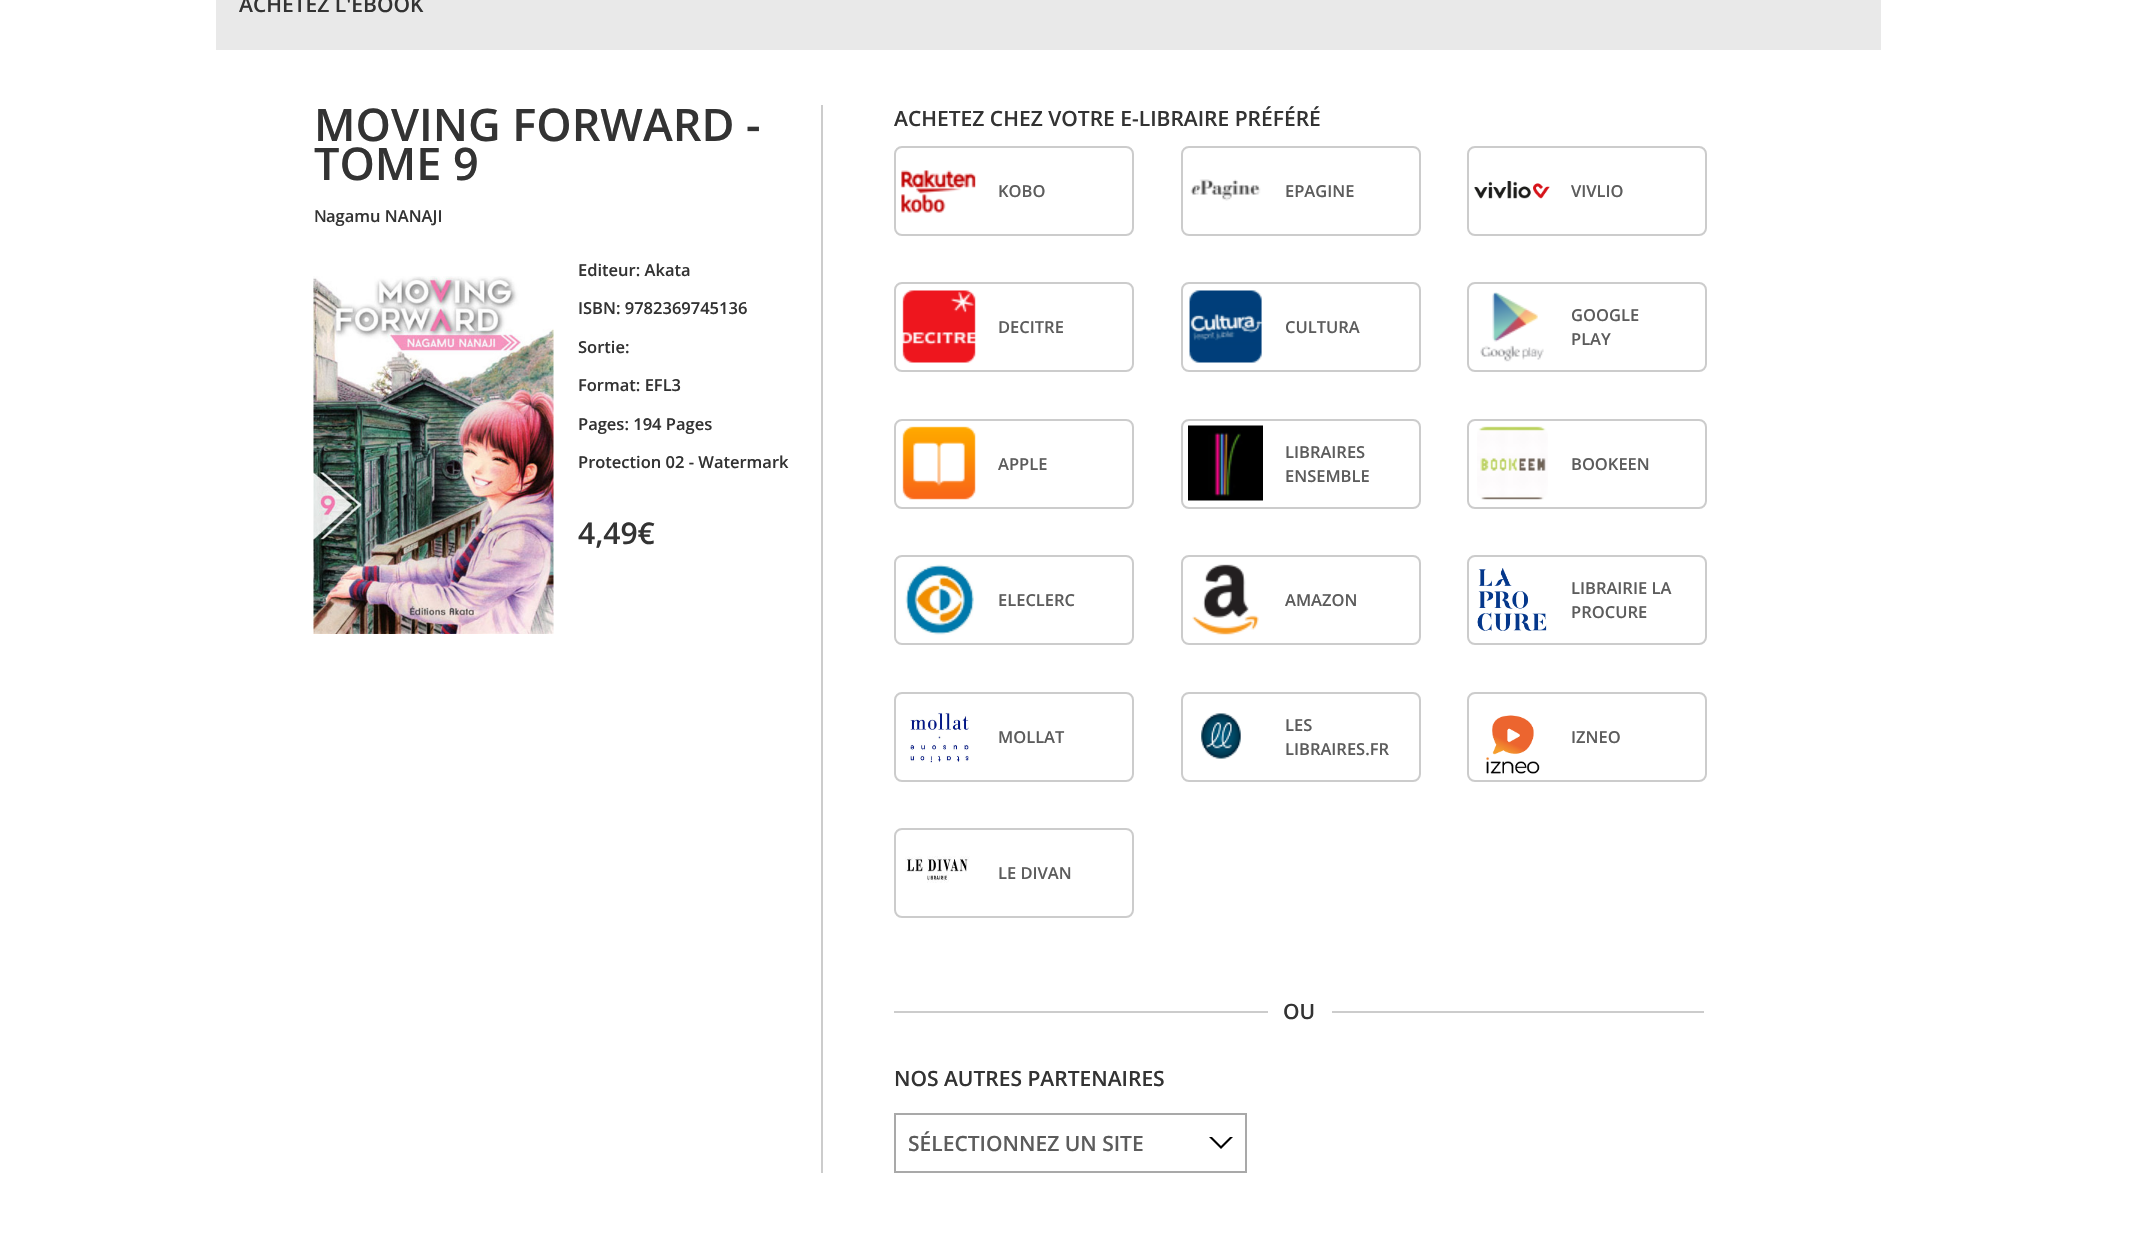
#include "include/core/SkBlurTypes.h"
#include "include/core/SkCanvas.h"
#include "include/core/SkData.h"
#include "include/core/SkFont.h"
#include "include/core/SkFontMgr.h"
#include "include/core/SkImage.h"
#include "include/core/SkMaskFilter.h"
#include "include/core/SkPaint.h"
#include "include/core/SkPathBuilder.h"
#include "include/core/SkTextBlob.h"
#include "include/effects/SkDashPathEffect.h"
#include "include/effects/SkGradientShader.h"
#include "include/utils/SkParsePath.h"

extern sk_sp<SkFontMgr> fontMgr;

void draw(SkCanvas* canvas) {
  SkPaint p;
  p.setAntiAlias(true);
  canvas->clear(SK_ColorWHITE);
  p.setColor(SkColorSetRGB(233, 233, 233));
  canvas->drawRect(SkRect::MakeLTRB(216, 0, 1881, 50), p);
  canvas->drawImageRect(SkImages::DeferredFromEncodedData(SkData::MakeFromFileName("images/1.png")), SkRect::MakeLTRB(313, 276, 554, 634), SkSamplingOptions());
  p.setColor(SkColorSetRGB(204, 204, 204));
  canvas->drawRect(SkRect::MakeLTRB(821, 105, 823, 1173), p);
  p.setStyle(SkPaint::kStroke_Style);
  p.setStrokeWidth(2);
  canvas->drawRoundRect(SkRect::MakeLTRB(895, 147, 1133, 235), 7, 7, p);
  canvas->drawImageRect(SkImages::DeferredFromEncodedData(SkData::MakeFromFileName("images/2.png")), SkRect::MakeLTRB(901, 170, 976, 213), SkSamplingOptions());
  canvas->drawRoundRect(SkRect::MakeLTRB(1182, 147, 1420, 235), 7, 7, p);
  canvas->drawImageRect(SkImages::DeferredFromEncodedData(SkData::MakeFromFileName("images/3.png")), SkRect::MakeLTRB(1190, 179, 1261, 201), SkSamplingOptions());
  canvas->drawRoundRect(SkRect::MakeLTRB(1468, 147, 1706, 235), 7, 7, p);
  canvas->drawImageRect(SkImages::DeferredFromEncodedData(SkData::MakeFromFileName("images/4.png")), SkRect::MakeLTRB(1474, 181, 1550, 199), SkSamplingOptions());
  canvas->drawRoundRect(SkRect::MakeLTRB(895, 283, 1133, 371), 7, 7, p);
  canvas->drawImageRect(SkImages::DeferredFromEncodedData(SkData::MakeFromFileName("images/5.png")), SkRect::MakeLTRB(902, 290, 976, 363), SkSamplingOptions());
  canvas->drawRoundRect(SkRect::MakeLTRB(1182, 283, 1420, 371), 7, 7, p);
  canvas->drawImageRect(SkImages::DeferredFromEncodedData(SkData::MakeFromFileName("images/6.png")), SkRect::MakeLTRB(1189, 290, 1262, 363), SkSamplingOptions());
  canvas->drawRoundRect(SkRect::MakeLTRB(1468, 283, 1706, 371), 7, 7, p);
  canvas->drawImageRect(SkImages::DeferredFromEncodedData(SkData::MakeFromFileName("images/7.png")), SkRect::MakeLTRB(1480, 292, 1544, 362), SkSamplingOptions());
  canvas->drawRoundRect(SkRect::MakeLTRB(895, 420, 1133, 508), 7, 7, p);
  canvas->drawImageRect(SkImages::DeferredFromEncodedData(SkData::MakeFromFileName("images/8.png")), SkRect::MakeLTRB(902, 426, 976, 500), SkSamplingOptions());
  canvas->drawRoundRect(SkRect::MakeLTRB(1182, 420, 1420, 508), 7, 7, p);
  canvas->drawImageRect(SkImages::DeferredFromEncodedData(SkData::MakeFromFileName("images/9.png")), SkRect::MakeLTRB(1188, 425, 1263, 501), SkSamplingOptions());
  canvas->drawRoundRect(SkRect::MakeLTRB(1468, 420, 1706, 508), 7, 7, p);
  canvas->drawImageRect(SkImages::DeferredFromEncodedData(SkData::MakeFromFileName("images/10.png")), SkRect::MakeLTRB(1477, 426, 1548, 500), SkSamplingOptions());
  canvas->drawRoundRect(SkRect::MakeLTRB(895, 556, 1133, 644), 7, 7, p);
  canvas->drawImageRect(SkImages::DeferredFromEncodedData(SkData::MakeFromFileName("images/11.png")), SkRect::MakeLTRB(905, 564, 974, 635), SkSamplingOptions());
  canvas->drawRoundRect(SkRect::MakeLTRB(1182, 556, 1420, 644), 7, 7, p);
  canvas->drawImageRect(SkImages::DeferredFromEncodedData(SkData::MakeFromFileName("images/12.png")), SkRect::MakeLTRB(1192, 564, 1259, 635), SkSamplingOptions());
  canvas->drawRoundRect(SkRect::MakeLTRB(1468, 556, 1706, 644), 7, 7, p);
  canvas->drawImageRect(SkImages::DeferredFromEncodedData(SkData::MakeFromFileName("images/13.png")), SkRect::MakeLTRB(1477, 568, 1547, 631), SkSamplingOptions());
  canvas->drawRoundRect(SkRect::MakeLTRB(895, 693, 1133, 781), 7, 7, p);
  canvas->drawImageRect(SkImages::DeferredFromEncodedData(SkData::MakeFromFileName("images/14.png")), SkRect::MakeLTRB(910, 712, 969, 763), SkSamplingOptions());
  canvas->drawRoundRect(SkRect::MakeLTRB(1182, 693, 1420, 781), 7, 7, p);
  canvas->drawImageRect(SkImages::DeferredFromEncodedData(SkData::MakeFromFileName("images/15.png")), SkRect::MakeLTRB(1201, 713, 1241, 759), SkSamplingOptions());
  canvas->drawRoundRect(SkRect::MakeLTRB(1468, 693, 1706, 781), 7, 7, p);
  canvas->drawImageRect(SkImages::DeferredFromEncodedData(SkData::MakeFromFileName("images/16.png")), SkRect::MakeLTRB(1486, 715, 1540, 774), SkSamplingOptions());
  canvas->drawRoundRect(SkRect::MakeLTRB(895, 829, 1133, 917), 7, 7, p);
  canvas->drawImageRect(SkImages::DeferredFromEncodedData(SkData::MakeFromFileName("images/17.png")), SkRect::MakeLTRB(905, 856, 970, 883), SkSamplingOptions());
  p.setStyle(SkPaint::kFill_Style);
  canvas->drawRect(SkRect::MakeLTRB(894, 1011, 1268, 1013), p);
  canvas->drawRect(SkRect::MakeLTRB(1332, 1011, 1704, 1013), p);
  p.setStyle(SkPaint::kStroke_Style);
  p.setColor(SkColorSetRGB(169, 169, 169));
  canvas->drawRect(SkRect::MakeLTRB(895, 1114, 1246, 1172), p);
  p.setStyle(SkPaint::kFill_Style);
  p.setColor(SK_ColorBLACK);
  canvas->drawPath(SkPathBuilder().moveTo(1209, 1137).lineTo(1233, 1137).lineTo(1221, 1149).close().detach(), p);
  p.setColor(SK_ColorWHITE);
  canvas->drawPath(SkPathBuilder().moveTo(1209, 1134).lineTo(1233, 1134).lineTo(1221, 1146).close().detach(), p);
  SkFont font1(fontMgr->matchFamilyStyle("Open Sans", SkFontStyle(600, SkFontStyle::kNormal_Width, SkFontStyle::kUpright_Slant)), 21);
  font1.setSubpixel(true);
  p.setColor(SkColorSetRGB(51, 51, 51));
  canvas->drawString("ACHETEZ L'EBOOK", 239, 12, font1, p);
  SkFont font2(fontMgr->matchFamilyStyle("Open Sans", SkFontStyle(600, SkFontStyle::kNormal_Width, SkFontStyle::kUpright_Slant)), 45);
  font2.setSubpixel(true);
  canvas->drawString("MOVING FORWARD -", 314, 141, font2, p);
  canvas->drawString("TOME 9", 314, 180, font2, p);
  SkFont font3(fontMgr->matchFamilyStyle("Noto Sans", SkFontStyle(500, SkFontStyle::kNormal_Width, SkFontStyle::kUpright_Slant)), 16.5f);
  font3.setSubpixel(true);
  canvas->drawString("N", 314, 222, font3, p);
  SkFont font4(fontMgr->matchFamilyStyle("Open Sans", SkFontStyle(600, SkFontStyle::kNormal_Width, SkFontStyle::kUpright_Slant)), 16.5f);
  font4.setSubpixel(true);
  canvas->drawString("agamu NANAJI", 326, 222, font4, p);
  canvas->drawString("Editeur: Akata", 578, 276, font4, p);
  canvas->drawString("ISBN: 9782369745136", 578, 314, font4, p);
  canvas->drawString("Sortie:", 578, 353, font4, p);
  canvas->drawString("Format: EFL3", 578, 391, font4, p);
  canvas->drawString("Pages: 194 Pages", 578, 430, font4, p);
  canvas->drawString("Protection 02 - Watermark", 578, 468, font4, p);
  SkFont font5(fontMgr->matchFamilyStyle("Open Sans", SkFontStyle(600, SkFontStyle::kNormal_Width, SkFontStyle::kUpright_Slant)), 30);
  font5.setSubpixel(true);
  canvas->drawString("4,49€", 578, 544, font5, p);
  canvas->drawString("ACHETEZ CHEZ VOTRE E-LIBRAIRE PRÉFÉRÉ", 894, 126, font1, p);
  p.setColor(SkColorSetRGB(92, 92, 92));
  canvas->drawString("KOBO", 998, 197, font4, p);
  canvas->drawString("EPAGINE", 1285, 197, font4, p);
  canvas->drawString("VIVLIO", 1571, 197, font4, p);
  canvas->drawString("DECITRE", 998, 333, font4, p);
  canvas->drawString("CULTURA", 1285, 333, font4, p);
  canvas->drawString("GOOGLE", 1571, 321, font4, p);
  canvas->drawString("PLAY", 1571, 345, font4, p);
  canvas->drawString("APPLE", 998, 470, font4, p);
  canvas->drawString("LIBRAIRES", 1285, 458, font4, p);
  canvas->drawString("ENSEMBLE", 1285, 482, font4, p);
  canvas->drawString("BOOKEEN", 1571, 470, font4, p);
  canvas->drawString("ELECLERC", 998, 606, font4, p);
  canvas->drawString("AMAZON", 1285, 606, font4, p);
  canvas->drawString("LIBRAIRIE LA", 1571, 594, font4, p);
  canvas->drawString("PROCURE", 1571, 618, font4, p);
  canvas->drawString("MOLLAT", 998, 743, font4, p);
  canvas->drawString("LES", 1285, 731, font4, p);
  canvas->drawString("LIBRAIRES.FR", 1285, 755, font4, p);
  canvas->drawString("IZNEO", 1571, 743, font4, p);
  canvas->drawString("LE DIVAN", 998, 879, font4, p);
  p.setColor(SkColorSetRGB(51, 51, 51));
  canvas->drawString("OU", 1283, 1019, font1, p);
  canvas->drawString("NOS AUTRES PARTENAIRES", 894, 1086, font1, p);
  p.setColor(SkColorSetRGB(92, 92, 92));
  canvas->drawString("SÉLECTIONNEZ UN SITE", 908, 1151, font1, p);
}
